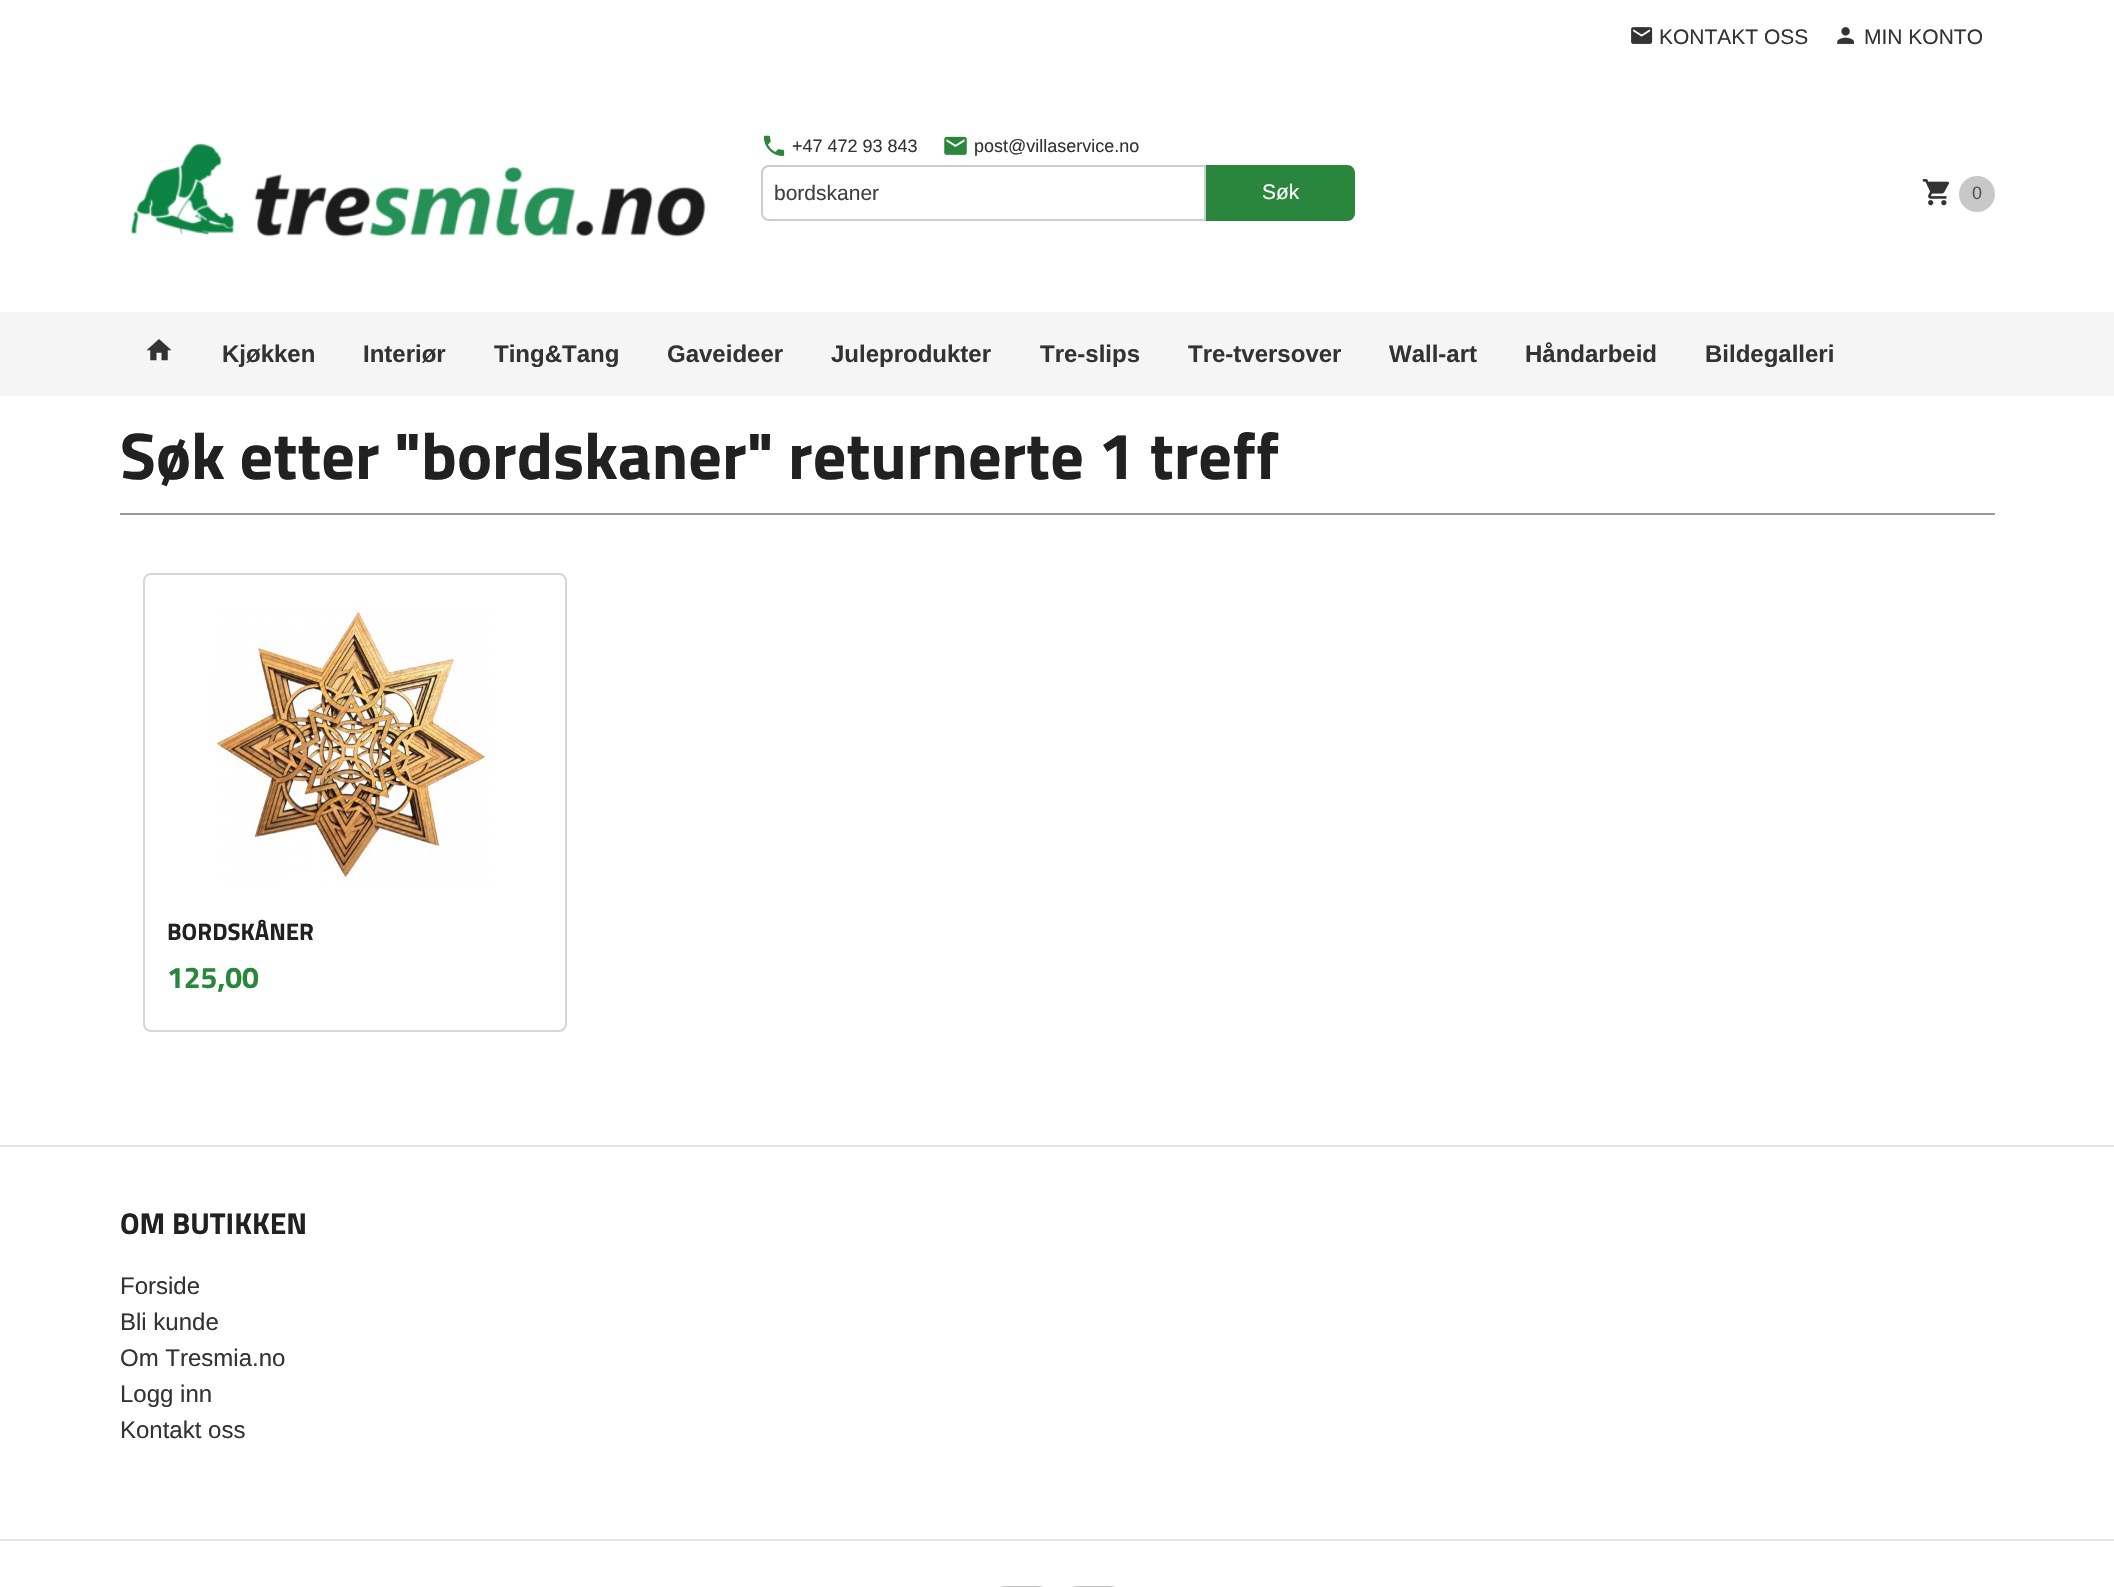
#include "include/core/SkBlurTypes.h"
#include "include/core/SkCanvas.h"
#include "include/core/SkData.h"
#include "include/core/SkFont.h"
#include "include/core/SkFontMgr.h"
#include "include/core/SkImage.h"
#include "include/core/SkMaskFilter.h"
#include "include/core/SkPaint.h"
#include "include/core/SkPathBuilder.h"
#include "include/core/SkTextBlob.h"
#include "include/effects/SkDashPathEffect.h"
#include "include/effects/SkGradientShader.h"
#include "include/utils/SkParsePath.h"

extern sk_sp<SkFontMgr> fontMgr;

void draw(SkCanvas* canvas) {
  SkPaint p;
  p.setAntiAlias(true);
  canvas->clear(SK_ColorWHITE);
  canvas->drawImageRect(SkImages::DeferredFromEncodedData(SkData::MakeFromFileName("images/1.png")), SkRect::MakeLTRB(1631, 27, 1653, 44), SkSamplingOptions());
  canvas->drawImageRect(SkImages::DeferredFromEncodedData(SkData::MakeFromFileName("images/2.png")), SkRect::MakeLTRB(1837, 27, 1854, 44), SkSamplingOptions());
  canvas->drawImageRect(SkImages::DeferredFromEncodedData(SkData::MakeFromFileName("images/3.png")), SkRect::MakeLTRB(130, 143, 706, 237), SkSamplingOptions());
  canvas->drawImageRect(SkImages::DeferredFromEncodedData(SkData::MakeFromFileName("images/4.png")), SkRect::MakeLTRB(763, 135, 785, 156), SkSamplingOptions());
  canvas->drawImageRect(SkImages::DeferredFromEncodedData(SkData::MakeFromFileName("images/5.png")), SkRect::MakeLTRB(944, 136, 967, 155), SkSamplingOptions());
  p.setStyle(SkPaint::kStroke_Style);
  p.setStrokeWidth(2);
  p.setColor(SkColorSetRGB(204, 204, 204));
  canvas->drawPath(SkPathBuilder().moveTo(769, 166).lineTo(1205, 166).lineTo(1205, 220).lineTo(769, 220).cubicTo(765, 220, 762, 217, 762, 213).lineTo(762, 173).cubicTo(762, 169, 765, 166, 769, 166).close().detach(), p);
  p.setStyle(SkPaint::kFill_Style);
  p.setColor(SkColorSetRGB(42, 134, 61));
  canvas->drawPath(SkPathBuilder().moveTo(1206, 165).lineTo(1347, 165).cubicTo(1351.5f, 165, 1355, 168.5f, 1355, 173).lineTo(1355, 213).cubicTo(1355, 217.5f, 1351.5f, 221, 1347, 221).lineTo(1206, 221).close().detach(), p);
  canvas->drawImageRect(SkImages::DeferredFromEncodedData(SkData::MakeFromFileName("images/6.png")), SkRect::MakeLTRB(1922, 179, 1949, 206), SkSamplingOptions());
  p.setColor(SkColorSetRGB(200, 200, 200));
  canvas->drawCircle(1977, 194, 18, p);
  p.setColor(SkColorSetRGB(245, 245, 245));
  canvas->drawRect(SkRect::MakeLTRB(0, 312, 2114, 396), p);
  canvas->drawImageRect(SkImages::DeferredFromEncodedData(SkData::MakeFromFileName("images/7.png")), SkRect::MakeLTRB(146, 339, 172, 361), SkSamplingOptions());
  p.setColor(SkColorSetRGB(153, 153, 153));
  canvas->drawRect(SkRect::MakeLTRB(120, 513, 1995, 515), p);
  p.setStyle(SkPaint::kStroke_Style);
  p.setColor(SkColorSetRGB(214, 214, 214));
  canvas->drawRoundRect(SkRect::MakeLTRB(144, 574, 566, 1031), 7, 7, p);
  canvas->drawImageRect(SkImages::DeferredFromEncodedData(SkData::MakeFromFileName("images/8.png")), SkRect::MakeLTRB(215, 607, 490, 885), SkSamplingOptions());
  p.setStyle(SkPaint::kFill_Style);
  p.setColor(SkColorSetRGB(230, 230, 230));
  canvas->drawRect(SkRect::MakeLTRB(0, 1145, 2114, 1147), p);
  canvas->drawRect(SkRect::MakeLTRB(0, 1539, 2114, 1541), p);
  p.setColor(SkColorSetRGB(194, 194, 194));
  canvas->drawRoundRect(SkRect::MakeLTRB(989, 1586, 1055, 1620), 33, 33, p);
  canvas->drawRoundRect(SkRect::MakeLTRB(1061, 1586, 1127, 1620), 33, 33, p);
  SkFont font1(fontMgr->matchFamilyStyle("Liberation Sans", SkFontStyle::Normal()), 21);
  font1.setSubpixel(true);
  p.setColor(SkColorSetRGB(51, 51, 51));
  canvas->drawString("KONTAKT OSS", 1659, 44, font1, p);
  canvas->drawString("MIN KONTO", 1864, 44, font1, p);
  SkFont font2(fontMgr->matchFamilyStyle("Liberation Sans", SkFontStyle::Normal()), 18);
  font2.setSubpixel(true);
  canvas->drawString("+47 472 93 843", 792, 152, font2, p);
  canvas->drawString("post@villaservice.no", 974, 152, font2, p);
  p.setColor(SkColorSetRGB(64, 64, 64));
  canvas->drawString("bordskaner", 774, 200, font1, p);
  p.setColor(SK_ColorWHITE);
  canvas->drawString("Søk", 1262, 199, font1, p);
  p.setColor(SkColorSetRGB(82, 82, 82));
  canvas->drawString("0", 1972, 199, font2, p);
  SkFont font3(fontMgr->matchFamilyStyle("Liberation Sans", SkFontStyle::Bold()), 24);
  font3.setSubpixel(true);
  p.setColor(SkColorSetRGB(51, 51, 51));
  canvas->drawString("Kjøkken", 222, 362, font3, p);
  canvas->drawString("Interiør", 363, 362, font3, p);
  canvas->drawString("Ting&Tang", 494, 362, font3, p);
  canvas->drawString("Gaveideer", 667, 362, font3, p);
  canvas->drawString("Juleprodukter", 831, 362, font3, p);
  canvas->drawString("Tre-slips", 1040, 362, font3, p);
  canvas->drawString("Tre-tversover", 1188, 362, font3, p);
  canvas->drawString("Wall-art", 1389, 362, font3, p);
  canvas->drawString("Håndarbeid", 1525, 362, font3, p);
  canvas->drawString("Bildegalleri", 1705, 362, font3, p);
  SkFont font4(fontMgr->matchFamilyStyle("Titillium Web", SkFontStyle::Bold()), 66);
  font4.setSubpixel(true);
  p.setColor(SkColorSetRGB(33, 33, 33));
  canvas->drawString("Søk etter \"bordskaner\" returnerte 1 treff", 120, 479, font4, p);
  SkFont font5(fontMgr->matchFamilyStyle("Titillium Web", SkFontStyle::Bold()), 24);
  font5.setSubpixel(true);
  canvas->drawString("BORDSKÅNER", 167, 940, font5, p);
  SkFont font6(fontMgr->matchFamilyStyle("Titillium Web", SkFontStyle::Bold()), 30);
  font6.setSubpixel(true);
  p.setColor(SkColorSetRGB(42, 134, 61));
  canvas->drawString("125,00", 167, 988, font6, p);
  p.setColor(SkColorSetRGB(33, 33, 33));
  canvas->drawString("OM BUTIKKEN", 120, 1234, font6, p);
  SkFont font7(fontMgr->matchFamilyStyle("Liberation Sans", SkFontStyle::Normal()), 24);
  font7.setSubpixel(true);
  p.setColor(SkColorSetRGB(51, 51, 51));
  canvas->drawString("Forside", 120, 1294, font7, p);
  canvas->drawString("Bli kunde", 120, 1330, font7, p);
  canvas->drawString("Om Tresmia.no", 120, 1366, font7, p);
  canvas->drawString("Logg inn", 120, 1402, font7, p);
  canvas->drawString("Kontakt oss", 120, 1438, font7, p);
}
